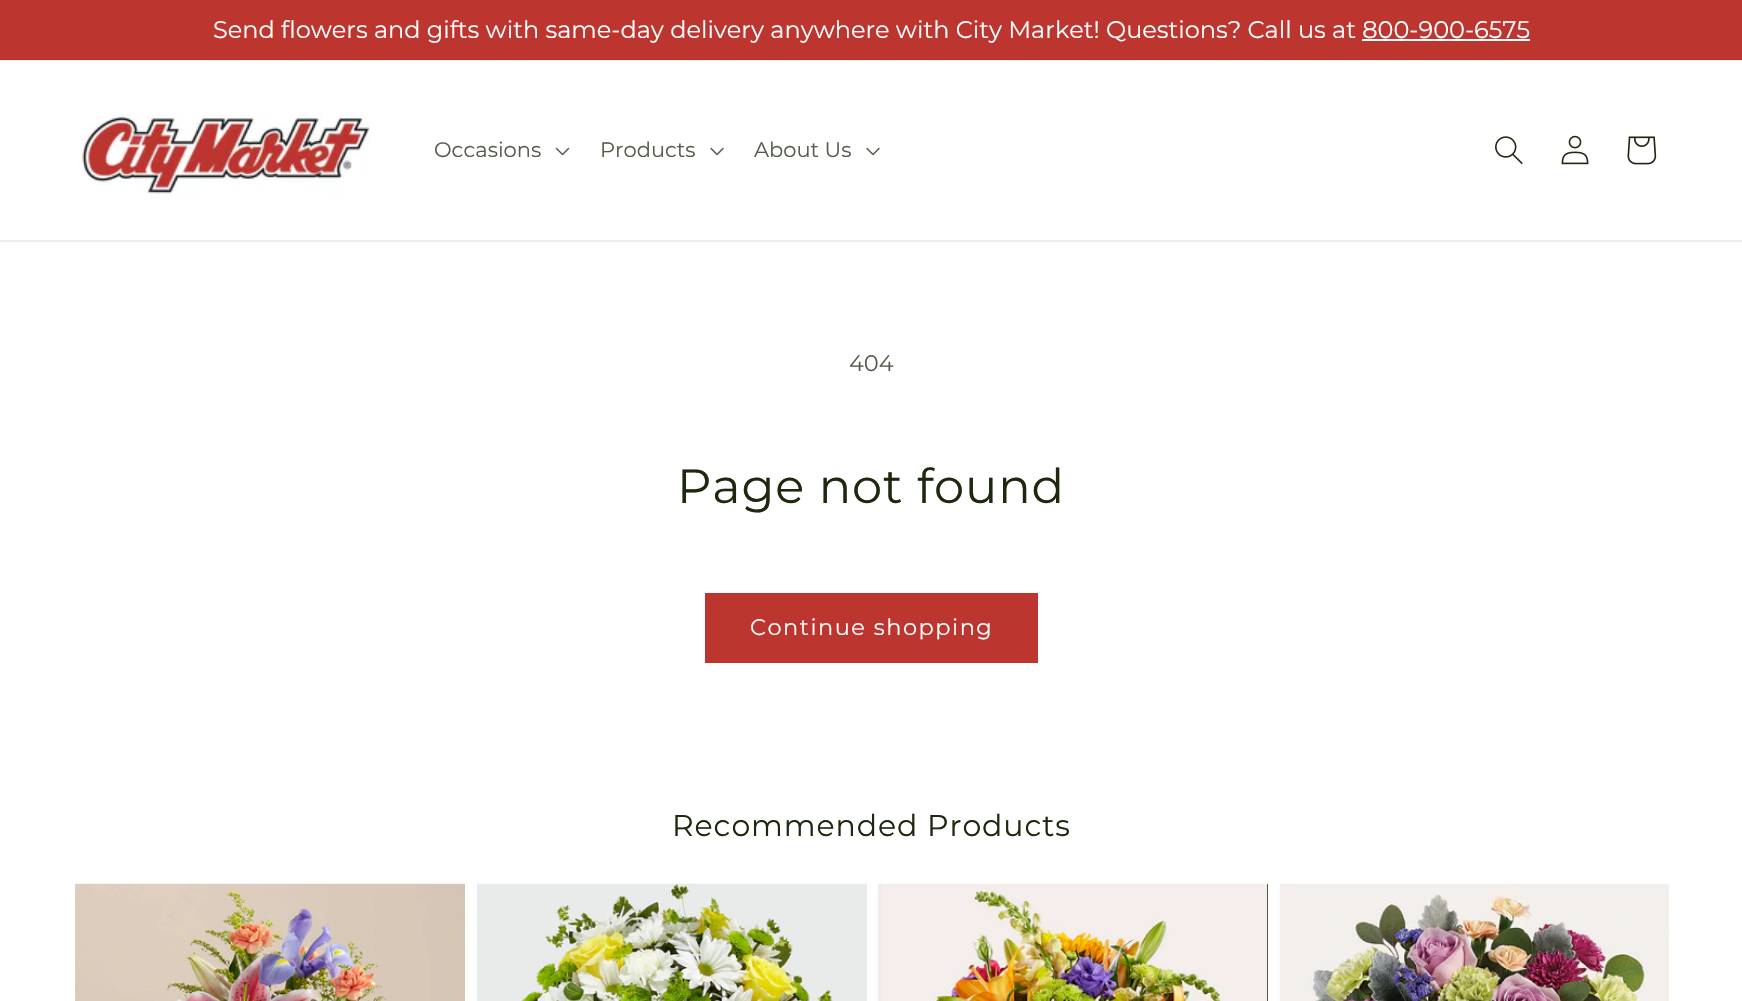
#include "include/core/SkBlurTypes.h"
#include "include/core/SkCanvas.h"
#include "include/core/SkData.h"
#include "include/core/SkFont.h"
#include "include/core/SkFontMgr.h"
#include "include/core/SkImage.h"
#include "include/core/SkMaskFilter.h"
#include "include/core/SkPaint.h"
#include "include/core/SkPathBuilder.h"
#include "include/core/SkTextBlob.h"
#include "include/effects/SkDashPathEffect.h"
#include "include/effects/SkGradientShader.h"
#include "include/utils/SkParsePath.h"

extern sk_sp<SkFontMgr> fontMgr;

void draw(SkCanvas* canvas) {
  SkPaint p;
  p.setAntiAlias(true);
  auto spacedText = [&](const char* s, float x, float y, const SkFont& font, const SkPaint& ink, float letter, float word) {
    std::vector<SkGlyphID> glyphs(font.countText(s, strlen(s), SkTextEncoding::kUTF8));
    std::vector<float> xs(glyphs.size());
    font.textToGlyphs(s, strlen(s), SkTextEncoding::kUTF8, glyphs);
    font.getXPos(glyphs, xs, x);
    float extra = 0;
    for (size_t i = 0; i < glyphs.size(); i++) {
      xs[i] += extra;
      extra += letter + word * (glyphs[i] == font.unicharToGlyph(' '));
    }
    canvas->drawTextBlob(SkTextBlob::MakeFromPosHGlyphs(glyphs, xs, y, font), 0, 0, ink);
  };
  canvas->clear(SK_ColorWHITE);
  p.setColor(SkColorSetRGB(237, 238, 236));
  canvas->drawRect(SkRect::MakeLTRB(0, 60, 1742, 61), p);
  p.setColor(SkColorSetRGB(188, 53, 47));
  canvas->drawRect(SkRect::MakeLTRB(0, 0, 1742, 59), p);
  p.setColor(SkColorSetRGB(175, 52, 44));
  canvas->drawRect(SkRect::MakeLTRB(0, 59, 1742, 60), p);
  p.setColor(SK_ColorWHITE);
  canvas->drawRect(SkRect::MakeLTRB(1362, 39, 1530, 41), p);
  p.setColor(SkColorSetRGB(237, 238, 236));
  canvas->drawRect(SkRect::MakeLTRB(0, 240, 1742, 242), p);
  canvas->drawImageRect(SkImages::DeferredFromEncodedData(SkData::MakeFromFileName("images/1.png")), SkRect::MakeLTRB(82, 114, 370, 198), SkSamplingOptions());
  canvas->drawImageRect(SkImages::DeferredFromEncodedData(SkData::MakeFromFileName("images/2.png")), SkRect::MakeLTRB(555, 147, 570, 156), SkSamplingOptions());
  canvas->drawImageRect(SkImages::DeferredFromEncodedData(SkData::MakeFromFileName("images/3.png")), SkRect::MakeLTRB(710, 147, 724, 156), SkSamplingOptions());
  canvas->drawImageRect(SkImages::DeferredFromEncodedData(SkData::MakeFromFileName("images/3.png")), SkRect::MakeLTRB(866, 147, 880, 156), SkSamplingOptions());
  canvas->drawImageRect(SkImages::DeferredFromEncodedData(SkData::MakeFromFileName("images/4.png")), SkRect::MakeLTRB(1495, 136, 1523, 164), SkSamplingOptions());
  canvas->drawImageRect(SkImages::DeferredFromEncodedData(SkData::MakeFromFileName("images/5.png")), SkRect::MakeLTRB(1561, 135, 1589, 165), SkSamplingOptions());
  canvas->drawImageRect(SkImages::DeferredFromEncodedData(SkData::MakeFromFileName("images/6.png")), SkRect::MakeLTRB(1627, 136, 1657, 165), SkSamplingOptions());
  p.setColor(SkColorSetRGB(188, 53, 47));
  canvas->drawRect(SkRect::MakeLTRB(705, 593, 1038, 663), p);
  canvas->drawImageRect(SkImages::DeferredFromEncodedData(SkData::MakeFromFileName("images/7.png")), SkRect::MakeLTRB(75, 883, 465, 1001), SkSamplingOptions());
  canvas->drawImageRect(SkImages::DeferredFromEncodedData(SkData::MakeFromFileName("images/8.png")), SkRect::MakeLTRB(477, 883, 867, 1001), SkSamplingOptions());
  p.setColor(SkColorSetRGB(30, 40, 15));
  canvas->drawRect(SkRect::MakeLTRB(1267, 884, 1268, 1001), p);
  canvas->drawImageRect(SkImages::DeferredFromEncodedData(SkData::MakeFromFileName("images/9.png")), SkRect::MakeLTRB(877, 883, 1268, 1001), SkSamplingOptions());
  canvas->drawImageRect(SkImages::DeferredFromEncodedData(SkData::MakeFromFileName("images/10.png")), SkRect::MakeLTRB(1279, 883, 1670, 1001), SkSamplingOptions());
  SkFont font1(fontMgr->matchFamilyStyle("Montserrat", SkFontStyle::Normal()), 24);
  font1.setSubpixel(true);
  p.setColor(SK_ColorWHITE);
  canvas->drawString("Send flowers and gifts with same-day delivery anywhere with City Market! Questions? Call us at 800-900-6575", 213, 38, font1, p);
  SkFont font2(fontMgr->matchFamilyStyle("Montserrat", SkFontStyle::Normal()), 21);
  font2.setSubpixel(true);
  p.setColor(SkColorSetRGB(86, 94, 75));
  canvas->drawString("Occasions", 434, 157, font2, p);
  canvas->drawString("Products", 600, 157, font2, p);
  canvas->drawString("About Us", 754, 157, font2, p);
  SkFont font3(fontMgr->matchFamilyStyle("Montserrat", SkFontStyle::Normal()), 22.5f);
  font3.setSubpixel(true);
  canvas->drawString("404", 849, 371, font3, p);
  SkFont font4(fontMgr->matchFamilyStyle("Montserrat", SkFontStyle::Normal()), 48);
  font4.setSubpixel(true);
  p.setColor(SkColorSetRGB(30, 40, 15));
  spacedText("Page not found", 677, 503, font4, p, 0.9f, 0);
  p.setColor(SK_ColorWHITE);
  spacedText("Continue shopping", 750, 635, font3, p, 1.5f, 0);
  SkFont font5(fontMgr->matchFamilyStyle("Montserrat", SkFontStyle::Normal()), 30);
  font5.setSubpixel(true);
  p.setColor(SkColorSetRGB(30, 40, 15));
  spacedText("Recommended Products", 672, 836, font5, p, 0.9f, 0);
}
